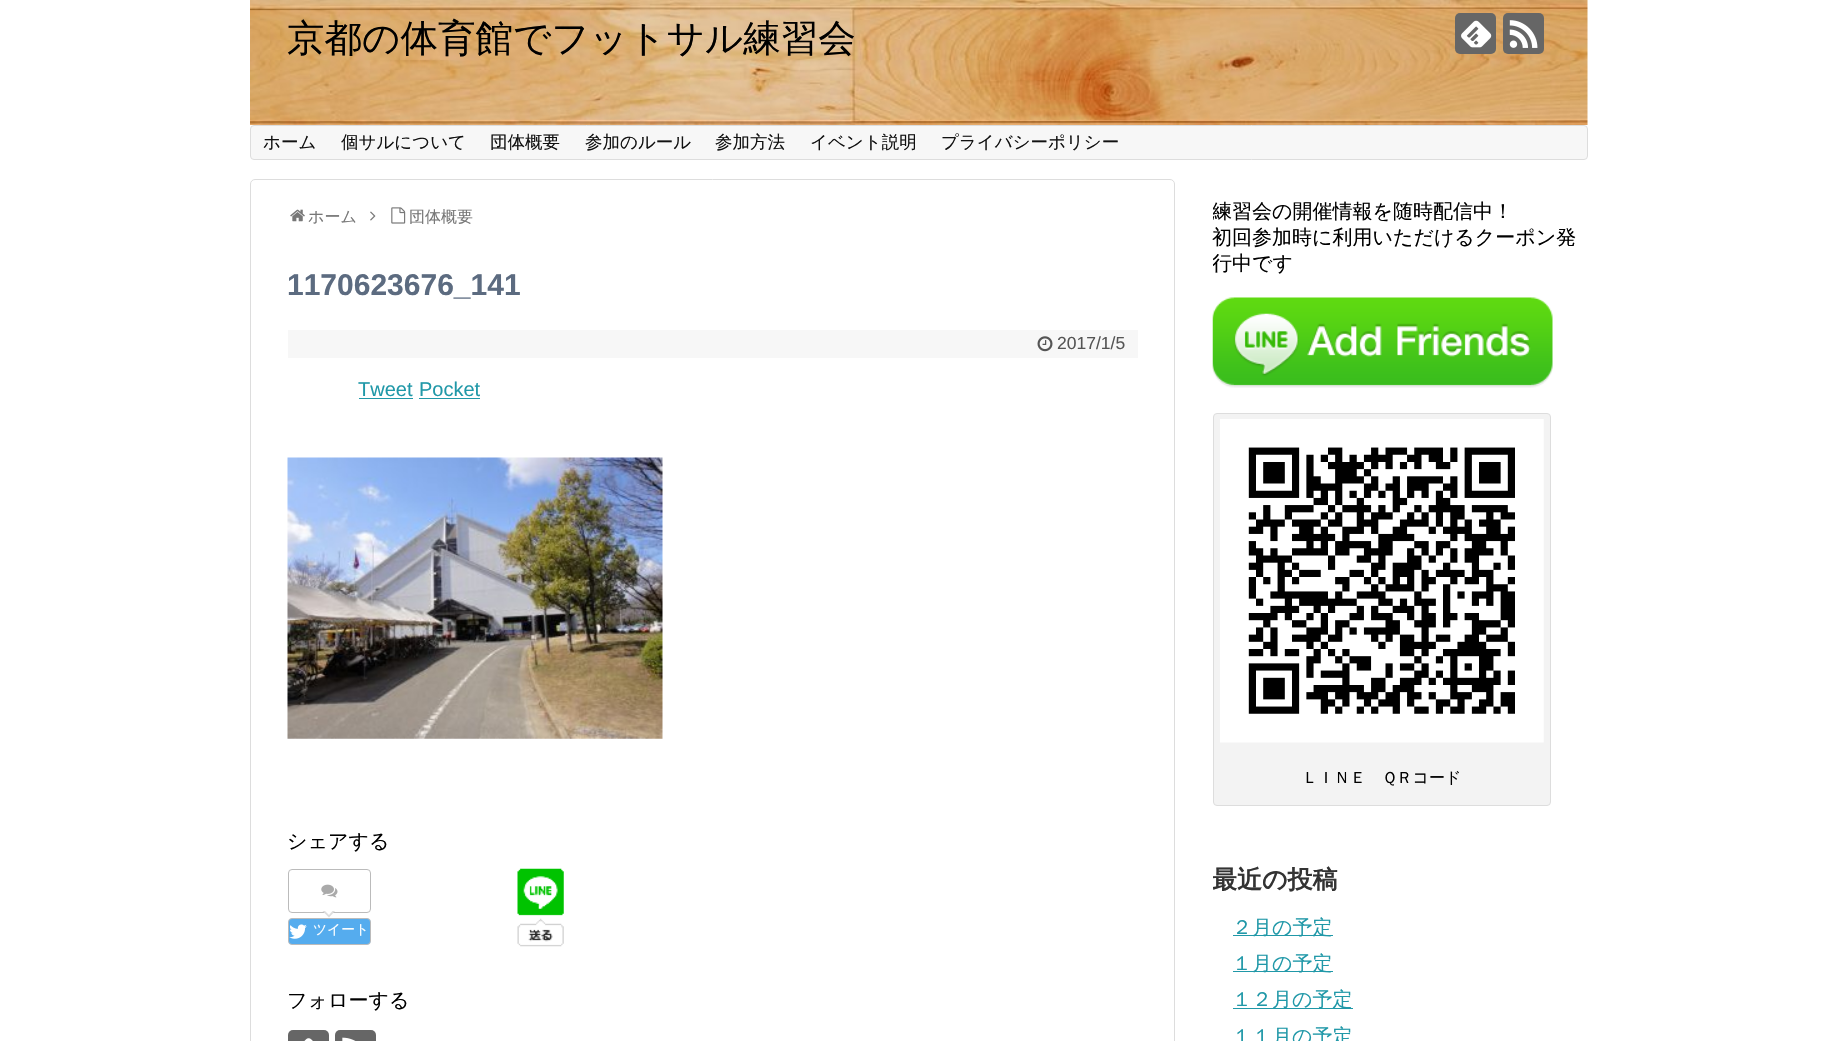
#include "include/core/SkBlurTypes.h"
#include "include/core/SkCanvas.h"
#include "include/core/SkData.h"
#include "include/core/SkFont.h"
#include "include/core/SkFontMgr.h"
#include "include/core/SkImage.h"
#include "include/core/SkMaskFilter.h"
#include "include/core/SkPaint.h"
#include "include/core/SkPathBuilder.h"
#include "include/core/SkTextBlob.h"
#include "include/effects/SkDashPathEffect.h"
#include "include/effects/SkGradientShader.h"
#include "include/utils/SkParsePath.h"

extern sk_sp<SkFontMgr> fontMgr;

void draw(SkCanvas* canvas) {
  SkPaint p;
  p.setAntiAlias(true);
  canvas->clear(SK_ColorWHITE);
  canvas->drawImageRect(SkImages::DeferredFromEncodedData(SkData::MakeFromFileName("images/1.png")), SkRect::MakeLTRB(250, 0, 1588, 125), SkSamplingOptions());
  p.setColor(SkColorSetRGB(102, 102, 102));
  canvas->drawRoundRect(SkRect::MakeLTRB(1455, 13, 1496, 54), 5, 5, p);
  canvas->drawImageRect(SkImages::DeferredFromEncodedData(SkData::MakeFromFileName("images/2.png")), SkRect::MakeLTRB(1461, 20, 1492, 48), SkSamplingOptions());
  canvas->drawRoundRect(SkRect::MakeLTRB(1503, 13, 1544, 54), 5, 5, p);
  canvas->drawImageRect(SkImages::DeferredFromEncodedData(SkData::MakeFromFileName("images/3.png")), SkRect::MakeLTRB(1509, 20, 1538, 48), SkSamplingOptions());
  p.setColor(SkColorSetRGB(247, 247, 247));
  canvas->drawRoundRect(SkRect::MakeLTRB(250.5f, 125.5f, 1587.5f, 159.5f), 3.5f, 3.5f, p);
  p.setStyle(SkPaint::kStroke_Style);
  p.setStrokeWidth(1);
  p.setColor(SkColorSetRGB(221, 221, 221));
  canvas->drawRoundRect(SkRect::MakeLTRB(250.5f, 125.5f, 1587.5f, 159.5f), 3.5f, 3.5f, p);
  canvas->drawRoundRect(SkRect::MakeLTRB(250.5f, 179.5f, 1174.5f, 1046.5f), 4.5f, 4.5f, p);
  canvas->drawImageRect(SkImages::DeferredFromEncodedData(SkData::MakeFromFileName("images/4.png")), SkRect::MakeLTRB(290, 209, 305, 222), SkSamplingOptions());
  canvas->drawImageRect(SkImages::DeferredFromEncodedData(SkData::MakeFromFileName("images/5.png")), SkRect::MakeLTRB(370, 211, 376, 221), SkSamplingOptions());
  canvas->drawImageRect(SkImages::DeferredFromEncodedData(SkData::MakeFromFileName("images/6.png")), SkRect::MakeLTRB(391, 207, 406, 224), SkSamplingOptions());
  p.setStyle(SkPaint::kFill_Style);
  p.setColor(SkColorSetRGB(247, 247, 247));
  canvas->drawRect(SkRect::MakeLTRB(288, 330, 1138, 358), p);
  canvas->drawImageRect(SkImages::DeferredFromEncodedData(SkData::MakeFromFileName("images/7.png")), SkRect::MakeLTRB(1037, 336, 1053, 352), SkSamplingOptions());
  p.setColor(SkColorSetRGB(32, 152, 168));
  canvas->drawRect(SkRect::MakeLTRB(359, 398, 413, 399), p);
  canvas->drawRect(SkRect::MakeLTRB(419, 398, 480, 399), p);
  canvas->drawImageRect(SkImages::DeferredFromEncodedData(SkData::MakeFromFileName("images/8.png")), SkRect::MakeLTRB(287, 457, 663, 739), SkSamplingOptions());
  p.setStyle(SkPaint::kStroke_Style);
  p.setColor(SkColorSetRGB(187, 187, 187));
  canvas->drawRoundRect(SkRect::MakeLTRB(288.5f, 869.5f, 370.5f, 912.5f), 3.5f, 3.5f, p);
  canvas->drawImageRect(SkImages::DeferredFromEncodedData(SkData::MakeFromFileName("images/9.png")), SkRect::MakeLTRB(321, 884, 338, 898), SkSamplingOptions());
  p.setStyle(SkPaint::kFill_Style);
  p.setColor(SkColorSetRGB(221, 221, 221));
  canvas->drawPath(SkPathBuilder().moveTo(322.5f, 911).lineTo(335, 911).lineTo(329, 917.5f).close().detach(), p);
  p.setColor(SK_ColorWHITE);
  canvas->drawPath(SkPathBuilder().moveTo(325, 911).lineTo(332.5f, 911).lineTo(329, 915).close().detach(), p);
  p.setColor(SkColorSetRGB(85, 172, 238));
  canvas->drawRoundRect(SkRect::MakeLTRB(288.5f, 918.5f, 370.5f, 944.5f), 3.5f, 3.5f, p);
  p.setStyle(SkPaint::kStroke_Style);
  p.setColor(SkColorSetRGB(187, 187, 187));
  canvas->drawRoundRect(SkRect::MakeLTRB(288.5f, 918.5f, 370.5f, 944.5f), 3.5f, 3.5f, p);
  canvas->drawImageRect(SkImages::DeferredFromEncodedData(SkData::MakeFromFileName("images/10.png")), SkRect::MakeLTRB(289, 924, 307, 939), SkSamplingOptions());
  canvas->drawImageRect(SkImages::DeferredFromEncodedData(SkData::MakeFromFileName("images/11.png")), SkRect::MakeLTRB(517, 868, 564, 947), SkSamplingOptions());
  p.setStyle(SkPaint::kFill_Style);
  p.setColor(SkColorSetRGB(102, 102, 102));
  canvas->drawRoundRect(SkRect::MakeLTRB(288, 1030, 329, 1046), 5, 5, p);
  canvas->drawImageRect(SkImages::DeferredFromEncodedData(SkData::MakeFromFileName("images/12.png")), SkRect::MakeLTRB(304, 1038, 313, 1041), SkSamplingOptions());
  canvas->drawRoundRect(SkRect::MakeLTRB(335, 1030, 376, 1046), 5, 5, p);
  canvas->drawImageRect(SkImages::DeferredFromEncodedData(SkData::MakeFromFileName("images/13.png")), SkRect::MakeLTRB(342, 1037, 356, 1041), SkSamplingOptions());
  canvas->drawImageRect(SkImages::DeferredFromEncodedData(SkData::MakeFromFileName("images/14.png")), SkRect::MakeLTRB(1212, 297, 1553, 388), SkSamplingOptions());
  p.setColor(SkColorSetRGB(243, 243, 243));
  canvas->drawRoundRect(SkRect::MakeLTRB(1213.5f, 413.5f, 1550.5f, 805.5f), 3.5f, 3.5f, p);
  p.setStyle(SkPaint::kStroke_Style);
  p.setColor(SkColorSetRGB(221, 221, 221));
  canvas->drawRoundRect(SkRect::MakeLTRB(1213.5f, 413.5f, 1550.5f, 805.5f), 3.5f, 3.5f, p);
  canvas->drawImageRect(SkImages::DeferredFromEncodedData(SkData::MakeFromFileName("images/15.png")), SkRect::MakeLTRB(1220, 419, 1544, 743), SkSamplingOptions());
  p.setStyle(SkPaint::kFill_Style);
  p.setColor(SkColorSetRGB(32, 152, 168));
  canvas->drawRect(SkRect::MakeLTRB(1233, 935, 1333, 936), p);
  canvas->drawRect(SkRect::MakeLTRB(1233, 971, 1333, 972), p);
  canvas->drawRect(SkRect::MakeLTRB(1233, 1008, 1353, 1009), p);
  SkFont font1(fontMgr->matchFamilyStyle("WenQuanYi Zen Hei", SkFontStyle(500, SkFontStyle::kNormal_Width, SkFontStyle::kUpright_Slant)), 37.5f);
  font1.setSubpixel(true);
  p.setColor(SK_ColorBLACK);
  canvas->drawString("京都の体育館でフットサル練習会", 287, 51, font1, p);
  SkFont font2(fontMgr->matchFamilyStyle("WenQuanYi Zen Hei", SkFontStyle(500, SkFontStyle::kNormal_Width, SkFontStyle::kUpright_Slant)), 17.5f);
  font2.setSubpixel(true);
  p.setColor(SkColorSetRGB(17, 17, 17));
  canvas->drawString("ホーム", 263, 148, font2, p);
  canvas->drawString("個サルについて", 341, 148, font2, p);
  canvas->drawString("団体概要", 490, 148, font2, p);
  canvas->drawString("参加のルール", 585, 148, font2, p);
  canvas->drawString("参加方法", 715, 148, font2, p);
  canvas->drawString("イベント説明", 810, 148, font2, p);
  canvas->drawString("プライバシーポリシー", 941, 148, font2, p);
  SkFont font3(fontMgr->matchFamilyStyle("WenQuanYi Zen Hei", SkFontStyle(500, SkFontStyle::kNormal_Width, SkFontStyle::kUpright_Slant)), 16);
  font3.setSubpixel(true);
  p.setColor(SkColorSetRGB(119, 119, 119));
  canvas->drawString("ホーム", 308, 222, font3, p);
  canvas->drawString("団体概要", 409, 222, font3, p);
  SkFont font4(fontMgr->matchFamilyStyle("Liberation Sans", SkFontStyle::Bold()), 30);
  font4.setSubpixel(true);
  p.setColor(SkColorSetRGB(92, 107, 128));
  canvas->drawString("1170623676_141", 287, 295, font4, p);
  SkFont font5(fontMgr->matchFamilyStyle("Liberation Sans", SkFontStyle::Normal()), 17.5f);
  font5.setSubpixel(true);
  p.setColor(SkColorSetRGB(85, 85, 85));
  canvas->drawString("2017/1/5", 1057, 349, font5, p);
  SkFont font6(fontMgr->matchFamilyStyle("Liberation Sans", SkFontStyle::Normal()), 20);
  font6.setSubpixel(true);
  p.setColor(SkColorSetRGB(32, 152, 168));
  canvas->drawString("Tweet", 358, 396, font6, p);
  canvas->drawString("Pocket", 419, 396, font6, p);
  SkFont font7(fontMgr->matchFamilyStyle("WenQuanYi Zen Hei", SkFontStyle(500, SkFontStyle::kNormal_Width, SkFontStyle::kUpright_Slant)), 20);
  font7.setSubpixel(true);
  p.setColor(SK_ColorBLACK);
  canvas->drawString("シェアする", 287, 848, font7, p);
  SkFont font8(fontMgr->matchFamilyStyle("WenQuanYi Zen Hei", SkFontStyle(500, SkFontStyle::kNormal_Width, SkFontStyle::kUpright_Slant)), 13.75f);
  font8.setSubpixel(true);
  p.setColor(SK_ColorWHITE);
  canvas->drawString("ツイート", 313, 934, font8, p);
  p.setColor(SK_ColorBLACK);
  canvas->drawString("フォローする", 287, 1007, font7, p);
  canvas->save();
  canvas->clipRect(SkRect::MakeLTRB(1213, 179, 1588, 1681));
  canvas->drawString("練習会の開催情報を随時配信中！", 1212, 218, font7, p);
  canvas->restore();
  canvas->drawString("初回参加時に利用いただけるクーポン発", 1212, 244, font7, p);
  canvas->save();
  canvas->clipRect(SkRect::MakeLTRB(1213, 179, 1588, 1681));
  canvas->drawString("行中です", 1212, 270, font7, p);
  canvas->restore();
  canvas->drawString("ＬＩＮＥ　ＱＲコード", 1302, 783, font3, p);
  canvas->save();
  canvas->clipRect(SkRect::MakeLTRB(1213, 179, 1588, 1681));
  SkFont font9(fontMgr->matchFamilyStyle("WenQuanYi Zen Hei", SkFontStyle::Bold()), 25);
  font9.setSubpixel(true);
  p.setColor(SkColorSetRGB(51, 51, 51));
  canvas->drawString("最近の投稿", 1212, 888, font9, p);
  canvas->restore();
  p.setColor(SkColorSetRGB(32, 152, 168));
  canvas->drawString("２月の予定", 1232, 934, font7, p);
  canvas->drawString("１月の予定", 1232, 970, font7, p);
  canvas->drawString("１２月の予定", 1232, 1006, font7, p);
  canvas->drawString("１１月の予定", 1232, 1043, font7, p);
}
